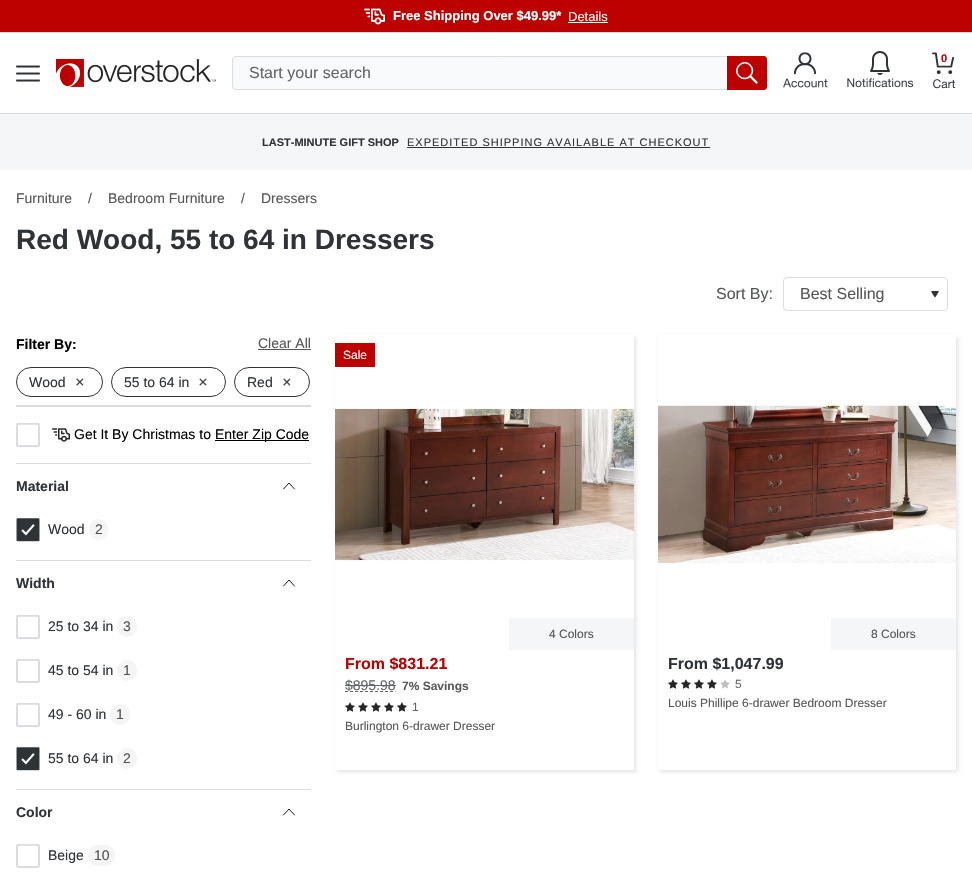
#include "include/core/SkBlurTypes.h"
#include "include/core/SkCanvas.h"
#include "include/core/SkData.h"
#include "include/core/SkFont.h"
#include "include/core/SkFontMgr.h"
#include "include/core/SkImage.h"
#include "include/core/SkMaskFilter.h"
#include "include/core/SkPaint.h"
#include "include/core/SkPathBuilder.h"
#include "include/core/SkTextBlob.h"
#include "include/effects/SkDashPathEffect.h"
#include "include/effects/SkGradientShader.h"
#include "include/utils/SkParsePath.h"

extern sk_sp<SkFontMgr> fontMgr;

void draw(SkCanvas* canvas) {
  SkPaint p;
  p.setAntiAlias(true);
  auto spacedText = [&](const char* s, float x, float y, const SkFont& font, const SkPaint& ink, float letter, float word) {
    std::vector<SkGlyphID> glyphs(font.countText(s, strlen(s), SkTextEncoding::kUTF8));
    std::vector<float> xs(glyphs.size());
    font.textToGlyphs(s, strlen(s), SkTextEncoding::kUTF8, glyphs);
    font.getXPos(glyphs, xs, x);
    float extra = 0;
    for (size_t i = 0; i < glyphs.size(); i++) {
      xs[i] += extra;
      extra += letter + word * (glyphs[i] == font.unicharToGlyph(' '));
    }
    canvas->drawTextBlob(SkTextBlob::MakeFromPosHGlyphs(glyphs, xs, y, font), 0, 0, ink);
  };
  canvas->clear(SK_ColorWHITE);
  p.setColor(SkColorSetRGB(189, 0, 0));
  canvas->drawRect(SkRect::MakeLTRB(0, 0, 972, 32), p);
  canvas->drawImageRect(SkImages::DeferredFromEncodedData(SkData::MakeFromFileName("images/1.png")), SkRect::MakeLTRB(364, 8, 385, 25), SkSamplingOptions());
  p.setColor(SK_ColorWHITE);
  canvas->drawRect(SkRect::MakeLTRB(568, 22, 608, 23), p);
  p.setColor(SkColorSetRGB(218, 220, 223));
  canvas->drawRect(SkRect::MakeLTRB(0, 32, 972, 33), p);
  canvas->drawRect(SkRect::MakeLTRB(0, 113, 972, 114), p);
  canvas->drawImageRect(SkImages::DeferredFromEncodedData(SkData::MakeFromFileName("images/2.png")), SkRect::MakeLTRB(16, 65, 40, 82), SkSamplingOptions());
  canvas->drawImageRect(SkImages::DeferredFromEncodedData(SkData::MakeFromFileName("images/3.png")), SkRect::MakeLTRB(56, 59, 216, 87), SkSamplingOptions());
  p.setColor(SkColorSetRGB(249, 250, 251));
  canvas->drawRoundRect(SkRect::MakeLTRB(232.5f, 56.5f, 766.5f, 89.5f), 3.5f, 3.5f, p);
  p.setStyle(SkPaint::kStroke_Style);
  p.setStrokeWidth(1);
  p.setColor(SkColorSetRGB(218, 220, 223));
  canvas->drawRoundRect(SkRect::MakeLTRB(232.5f, 56.5f, 766.5f, 89.5f), 3.5f, 3.5f, p);
  p.setStyle(SkPaint::kFill_Style);
  p.setColor(SkColorSetRGB(189, 0, 0));
  canvas->drawPath(SkPathBuilder().moveTo(727, 56).lineTo(764, 56).cubicTo(765.5f, 56, 767, 57.5f, 767, 59).lineTo(767, 87).cubicTo(767, 88.5f, 765.5f, 90, 764, 90).lineTo(727, 90).close().detach(), p);
  p.setStyle(SkPaint::kStroke_Style);
  p.setStrokeWidth(2.4f);
  p.setStrokeCap(SkPaint::kRound_Cap);
  p.setColor(SK_ColorWHITE);
  canvas->drawPath(SkPathBuilder().moveTo(756.5f, 82.5f).lineTo(751, 77).detach(), p);
  p.setStrokeWidth(1.6f);
  p.setStrokeCap(SkPaint::kButt_Cap);
  canvas->drawPath(SkPathBuilder().moveTo(750, 65).cubicTo(757.5f, 72.5f, 746.5f, 83.5f, 739, 76).cubicTo(732, 69, 743, 58, 750, 65).close().detach(), p);
  canvas->drawImageRect(SkImages::DeferredFromEncodedData(SkData::MakeFromFileName("images/4.png")), SkRect::MakeLTRB(783, 52, 828, 88), SkSamplingOptions());
  canvas->drawImageRect(SkImages::DeferredFromEncodedData(SkData::MakeFromFileName("images/5.png")), SkRect::MakeLTRB(847, 51, 914, 88), SkSamplingOptions());
  canvas->drawImageRect(SkImages::DeferredFromEncodedData(SkData::MakeFromFileName("images/6.png")), SkRect::MakeLTRB(932, 52, 956, 89), SkSamplingOptions());
  p.setStyle(SkPaint::kFill_Style);
  p.setColor(SkColorSetRGB(245, 246, 247));
  canvas->drawRect(SkRect::MakeLTRB(0, 114, 972, 170), p);
  p.setColor(SkColorSetRGB(47, 51, 55));
  canvas->drawRect(SkRect::MakeLTRB(407, 147, 710, 148), p);
  canvas->drawImageRect(SkImages::DeferredFromEncodedData(SkData::MakeFromFileName("images/7.png")), SkRect::MakeLTRB(931, 291, 939, 298), SkSamplingOptions());
  p.setStyle(SkPaint::kStroke_Style);
  p.setStrokeWidth(1);
  p.setColor(SkColorSetRGB(218, 220, 223));
  canvas->drawRoundRect(SkRect::MakeLTRB(783.5f, 277.5f, 947.5f, 310.5f), 3.5f, 3.5f, p);
  p.setStyle(SkPaint::kFill_Style);
  p.setColor(SkColorSetRGB(84, 86, 88));
  canvas->drawRect(SkRect::MakeLTRB(258, 349, 311, 350), p);
  p.setStyle(SkPaint::kStroke_Style);
  p.setColor(SkColorSetRGB(47, 51, 55));
  canvas->drawRoundRect(SkRect::MakeLTRB(16.5f, 367.5f, 102.5f, 396.5f), 14.5f, 14.5f, p);
  canvas->drawImageRect(SkImages::DeferredFromEncodedData(SkData::MakeFromFileName("images/8.png")), SkRect::MakeLTRB(76, 378, 84, 386), SkSamplingOptions());
  canvas->drawRoundRect(SkRect::MakeLTRB(111.5f, 367.5f, 225.5f, 396.5f), 14.5f, 14.5f, p);
  canvas->drawImageRect(SkImages::DeferredFromEncodedData(SkData::MakeFromFileName("images/9.png")), SkRect::MakeLTRB(199, 378, 207, 386), SkSamplingOptions());
  canvas->drawRoundRect(SkRect::MakeLTRB(234.5f, 367.5f, 309.5f, 396.5f), 14.5f, 14.5f, p);
  canvas->drawImageRect(SkImages::DeferredFromEncodedData(SkData::MakeFromFileName("images/10.png")), SkRect::MakeLTRB(283, 378, 291, 386), SkSamplingOptions());
  p.setStyle(SkPaint::kFill_Style);
  p.setColor(SkColorSetRGB(218, 220, 223));
  canvas->drawRect(SkRect::MakeLTRB(16, 405, 311, 407), p);
  p.setStyle(SkPaint::kStroke_Style);
  p.setStrokeWidth(2);
  canvas->drawRoundRect(SkRect::MakeLTRB(17, 424, 39, 446), 1, 1, p);
  p.setStyle(SkPaint::kFill_Style);
  p.setColor(SkColorSetRGB(225, 227, 229));
  canvas->drawRect(SkRect::MakeLTRB(19, 424, 37, 425), p);
  canvas->drawImageRect(SkImages::DeferredFromEncodedData(SkData::MakeFromFileName("images/11.png")), SkRect::MakeLTRB(52, 428, 70, 442), SkSamplingOptions());
  p.setColor(SK_ColorBLACK);
  canvas->drawRect(SkRect::MakeLTRB(215, 440, 309, 441), p);
  p.setColor(SkColorSetRGB(218, 220, 223));
  canvas->drawRect(SkRect::MakeLTRB(16, 463, 311, 464), p);
  p.setStyle(SkPaint::kStroke_Style);
  p.setStrokeWidth(0.9f);
  p.setStrokeCap(SkPaint::kRound_Cap);
  p.setColor(SK_ColorBLACK);
  canvas->drawPath(SkPathBuilder().moveTo(283.5f, 489).lineTo(289, 483).lineTo(294.5f, 489).detach(), p);
  canvas->drawImageRect(SkImages::DeferredFromEncodedData(SkData::MakeFromFileName("images/12.png")), SkRect::MakeLTRB(16, 518, 40, 542), SkSamplingOptions());
  p.setStyle(SkPaint::kFill_Style);
  p.setColor(SkColorSetRGB(245, 245, 245));
  canvas->drawRoundRect(SkRect::MakeLTRB(89, 519, 108, 540), 9.5f, 9.5f, p);
  p.setColor(SkColorSetRGB(218, 220, 223));
  canvas->drawRect(SkRect::MakeLTRB(16, 560, 311, 561), p);
  p.setStyle(SkPaint::kStroke_Style);
  p.setColor(SK_ColorBLACK);
  canvas->drawPath(SkPathBuilder().moveTo(283.5f, 586).lineTo(289, 580).lineTo(294.5f, 586).detach(), p);
  p.setStrokeWidth(2);
  p.setStrokeCap(SkPaint::kButt_Cap);
  p.setColor(SkColorSetRGB(218, 220, 223));
  canvas->drawRoundRect(SkRect::MakeLTRB(17, 616, 39, 638), 1, 1, p);
  p.setStyle(SkPaint::kFill_Style);
  p.setColor(SkColorSetRGB(225, 227, 229));
  canvas->drawRect(SkRect::MakeLTRB(19, 616, 37, 617), p);
  p.setColor(SkColorSetRGB(245, 245, 245));
  canvas->drawRoundRect(SkRect::MakeLTRB(117, 616, 137, 637), 10, 10, p);
  p.setStyle(SkPaint::kStroke_Style);
  p.setColor(SkColorSetRGB(218, 220, 223));
  canvas->drawRoundRect(SkRect::MakeLTRB(17, 660, 39, 682), 1, 1, p);
  p.setStyle(SkPaint::kFill_Style);
  p.setColor(SkColorSetRGB(225, 227, 229));
  canvas->drawRect(SkRect::MakeLTRB(19, 660, 37, 661), p);
  p.setColor(SkColorSetRGB(245, 245, 245));
  canvas->drawRoundRect(SkRect::MakeLTRB(117, 660, 137, 681), 10, 10, p);
  p.setStyle(SkPaint::kStroke_Style);
  p.setColor(SkColorSetRGB(218, 220, 223));
  canvas->drawRoundRect(SkRect::MakeLTRB(17, 704, 39, 726), 1, 1, p);
  p.setStyle(SkPaint::kFill_Style);
  p.setColor(SkColorSetRGB(225, 227, 229));
  canvas->drawRect(SkRect::MakeLTRB(19, 704, 37, 705), p);
  p.setColor(SkColorSetRGB(245, 245, 245));
  canvas->drawRoundRect(SkRect::MakeLTRB(110, 704, 130, 725), 10, 10, p);
  canvas->drawImageRect(SkImages::DeferredFromEncodedData(SkData::MakeFromFileName("images/12.png")), SkRect::MakeLTRB(16, 747, 40, 771), SkSamplingOptions());
  canvas->drawRoundRect(SkRect::MakeLTRB(117, 748, 137, 769), 10, 10, p);
  p.setColor(SkColorSetRGB(218, 220, 223));
  canvas->drawRect(SkRect::MakeLTRB(16, 789, 311, 790), p);
  p.setStyle(SkPaint::kStroke_Style);
  p.setStrokeWidth(0.9f);
  p.setStrokeCap(SkPaint::kRound_Cap);
  p.setColor(SK_ColorBLACK);
  canvas->drawPath(SkPathBuilder().moveTo(283.5f, 815).lineTo(289, 809).lineTo(294.5f, 815).detach(), p);
  p.setStrokeWidth(2);
  p.setStrokeCap(SkPaint::kButt_Cap);
  p.setColor(SkColorSetRGB(218, 220, 223));
  canvas->drawRoundRect(SkRect::MakeLTRB(17, 845, 39, 867), 1, 1, p);
  p.setStyle(SkPaint::kFill_Style);
  p.setColor(SkColorSetRGB(225, 227, 229));
  canvas->drawRect(SkRect::MakeLTRB(19, 845, 37, 846), p);
  p.setColor(SkColorSetRGB(245, 245, 245));
  canvas->drawRoundRect(SkRect::MakeLTRB(88, 845, 115, 866), 10, 10, p);
  canvas->save();
  canvas->clipPath(SkPathBuilder(SkPathFillType::kEvenOdd).moveTo(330, 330).lineTo(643, 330).lineTo(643, 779).lineTo(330, 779).close().moveTo(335, 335).lineTo(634, 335).lineTo(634, 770).lineTo(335, 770).close().detach(), true);
  p.setColor(SkColorSetARGB(26, 0, 0, 0));
  p.setMaskFilter(SkMaskFilter::MakeBlur(kNormal_SkBlurStyle, 2));
  canvas->drawRect(SkRect::MakeLTRB(337, 337, 636, 772), p);
  p.setMaskFilter(nullptr);
  canvas->restore();
  p.setColor(SkColorSetRGB(189, 0, 0));
  canvas->drawRect(SkRect::MakeLTRB(335, 343, 375, 367), p);
  p.setStyle(SkPaint::kStroke_Style);
  p.setStrokeWidth(1);
  p.setColor(SkColorSetRGB(98, 102, 105));
  p.setPathEffect(SkDashPathEffect::Make({{3, 2}}, 0));
  canvas->drawPath(SkPathBuilder().moveTo(345, 691.5f).lineTo(395.5f, 691.5f).detach(), p);
  p.setPathEffect(nullptr);
  p.setStyle(SkPaint::kFill_Style);
  canvas->drawRect(SkRect::MakeLTRB(345, 685, 396, 686), p);
  canvas->drawImageRect(SkImages::DeferredFromEncodedData(SkData::MakeFromFileName("images/13.png")), SkRect::MakeLTRB(345, 702, 355, 712), SkSamplingOptions());
  canvas->drawImageRect(SkImages::DeferredFromEncodedData(SkData::MakeFromFileName("images/13.png")), SkRect::MakeLTRB(358, 702, 368, 712), SkSamplingOptions());
  canvas->drawImageRect(SkImages::DeferredFromEncodedData(SkData::MakeFromFileName("images/13.png")), SkRect::MakeLTRB(371, 702, 381, 712), SkSamplingOptions());
  canvas->drawImageRect(SkImages::DeferredFromEncodedData(SkData::MakeFromFileName("images/13.png")), SkRect::MakeLTRB(384, 702, 394, 712), SkSamplingOptions());
  canvas->drawImageRect(SkImages::DeferredFromEncodedData(SkData::MakeFromFileName("images/13.png")), SkRect::MakeLTRB(397, 702, 407, 712), SkSamplingOptions());
  p.setColor(SkColorSetRGB(245, 246, 247));
  canvas->drawRect(SkRect::MakeLTRB(509, 618, 634, 650), p);
  canvas->drawImageRect(SkImages::DeferredFromEncodedData(SkData::MakeFromFileName("images/14.png")), SkRect::MakeLTRB(335, 407, 634, 561), SkSamplingOptions());
  canvas->save();
  canvas->clipPath(SkPathBuilder(SkPathFillType::kEvenOdd).moveTo(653, 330).lineTo(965, 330).lineTo(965, 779).lineTo(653, 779).close().moveTo(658, 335).lineTo(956, 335).lineTo(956, 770).lineTo(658, 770).close().detach(), true);
  p.setColor(SkColorSetARGB(26, 0, 0, 0));
  p.setMaskFilter(SkMaskFilter::MakeBlur(kNormal_SkBlurStyle, 2));
  canvas->drawRect(SkRect::MakeLTRB(660, 337, 958, 772), p);
  p.setMaskFilter(nullptr);
  canvas->restore();
  canvas->drawImageRect(SkImages::DeferredFromEncodedData(SkData::MakeFromFileName("images/15.png")), SkRect::MakeLTRB(658, 405, 956, 566), SkSamplingOptions());
  p.setColor(SkColorSetRGB(245, 246, 247));
  canvas->drawRect(SkRect::MakeLTRB(831, 618, 956, 650), p);
  canvas->drawImageRect(SkImages::DeferredFromEncodedData(SkData::MakeFromFileName("images/13.png")), SkRect::MakeLTRB(668, 679, 678, 689), SkSamplingOptions());
  canvas->drawImageRect(SkImages::DeferredFromEncodedData(SkData::MakeFromFileName("images/13.png")), SkRect::MakeLTRB(681, 679, 691, 689), SkSamplingOptions());
  canvas->drawImageRect(SkImages::DeferredFromEncodedData(SkData::MakeFromFileName("images/13.png")), SkRect::MakeLTRB(694, 679, 704, 689), SkSamplingOptions());
  canvas->drawImageRect(SkImages::DeferredFromEncodedData(SkData::MakeFromFileName("images/13.png")), SkRect::MakeLTRB(707, 679, 717, 689), SkSamplingOptions());
  canvas->drawImageRect(SkImages::DeferredFromEncodedData(SkData::MakeFromFileName("images/16.png")), SkRect::MakeLTRB(720, 679, 730, 689), SkSamplingOptions());
  SkFont font1(fontMgr->matchFamilyStyle("Liberation Sans", SkFontStyle::Bold()), 13);
  font1.setSubpixel(true);
  p.setColor(SK_ColorWHITE);
  canvas->drawString("Free Shipping Over $49.99*", 393, 20, font1, p);
  SkFont font2(fontMgr->matchFamilyStyle("Liberation Sans", SkFontStyle::Normal()), 13);
  font2.setSubpixel(true);
  canvas->drawString("Details", 568, 21, font2, p);
  SkFont font3(fontMgr->matchFamilyStyle("Liberation Sans", SkFontStyle::Normal()), 16);
  font3.setSubpixel(true);
  p.setColor(SkColorSetRGB(98, 102, 105));
  canvas->drawString("Start your search", 249, 78, font3, p);
  SkFont font4(fontMgr->matchFamilyStyle("Liberation Sans", SkFontStyle::Bold()), 11);
  font4.setSubpixel(true);
  p.setColor(SkColorSetRGB(189, 0, 0));
  canvas->drawString("0", 941, 62, font4, p);
  p.setColor(SkColorSetRGB(47, 51, 55));
  canvas->drawString("LAST-MINUTE GIFT SHOP", 262, 146, font4, p);
  SkFont font5(fontMgr->matchFamilyStyle("Liberation Sans", SkFontStyle::Normal()), 11);
  font5.setSubpixel(true);
  spacedText("EXPEDITED SHIPPING AVAILABLE AT CHECKOUT", 407, 146, font5, p, 1, 0);
  SkFont font6(fontMgr->matchFamilyStyle("Liberation Sans", SkFontStyle::Normal()), 14);
  font6.setSubpixel(true);
  p.setColor(SkColorSetRGB(84, 86, 88));
  canvas->drawString("Furniture", 16, 203, font6, p);
  canvas->drawString("/", 88, 203, font6, p);
  canvas->drawString("Bedroom Furniture", 108, 203, font6, p);
  canvas->drawString("/", 241, 203, font6, p);
  canvas->drawString("Dressers", 261, 203, font6, p);
  SkFont font7(fontMgr->matchFamilyStyle("Liberation Sans", SkFontStyle::Bold()), 28);
  font7.setSubpixel(true);
  p.setColor(SkColorSetRGB(47, 51, 55));
  canvas->drawString("Red Wood, 55 to 64 in Dressers", 16, 249, font7, p);
  p.setColor(SkColorSetRGB(84, 86, 88));
  canvas->drawString("Sort By:", 716, 299, font3, p);
  canvas->drawString("Best Selling", 800, 299, font3, p);
  SkFont font8(fontMgr->matchFamilyStyle("Liberation Sans", SkFontStyle::Bold()), 14);
  font8.setSubpixel(true);
  p.setColor(SK_ColorBLACK);
  canvas->drawString("Filter By:", 16, 349, font8, p);
  p.setColor(SkColorSetRGB(84, 86, 88));
  canvas->drawString("Clear All", 258, 348, font6, p);
  p.setColor(SkColorSetRGB(47, 51, 55));
  canvas->drawString("Wood", 29, 387, font6, p);
  canvas->drawString("55 to 64 in", 124, 387, font6, p);
  canvas->drawString("Red", 247, 387, font6, p);
  p.setColor(SK_ColorBLACK);
  canvas->drawString("Get It By Christmas to", 74, 439, font6, p);
  canvas->drawString("Enter Zip Code", 215, 439, font6, p);
  p.setColor(SkColorSetRGB(47, 51, 55));
  canvas->drawString("Material", 16, 491, font8, p);
  canvas->drawString("Wood", 48, 534, font6, p);
  p.setColor(SkColorSetRGB(81, 81, 81));
  canvas->drawString("2", 95, 534, font6, p);
  p.setColor(SkColorSetRGB(47, 51, 55));
  canvas->drawString("Width", 16, 588, font8, p);
  canvas->drawString("25 to 34 in", 48, 631, font6, p);
  p.setColor(SkColorSetRGB(81, 81, 81));
  canvas->drawString("3", 123, 631, font6, p);
  p.setColor(SkColorSetRGB(47, 51, 55));
  canvas->drawString("45 to 54 in", 48, 675, font6, p);
  p.setColor(SkColorSetRGB(81, 81, 81));
  canvas->drawString("1", 123, 675, font6, p);
  p.setColor(SkColorSetRGB(47, 51, 55));
  canvas->drawString("49 - 60 in", 48, 719, font6, p);
  p.setColor(SkColorSetRGB(81, 81, 81));
  canvas->drawString("1", 116, 719, font6, p);
  p.setColor(SkColorSetRGB(47, 51, 55));
  canvas->drawString("55 to 64 in", 48, 763, font6, p);
  p.setColor(SkColorSetRGB(81, 81, 81));
  canvas->drawString("2", 123, 763, font6, p);
  p.setColor(SkColorSetRGB(47, 51, 55));
  canvas->drawString("Color", 16, 817, font8, p);
  canvas->drawString("Beige", 48, 860, font6, p);
  p.setColor(SkColorSetRGB(81, 81, 81));
  canvas->drawString("10", 94, 860, font6, p);
  SkFont font9(fontMgr->matchFamilyStyle("Liberation Sans", SkFontStyle::Normal()), 12);
  font9.setSubpixel(true);
  p.setColor(SK_ColorWHITE);
  canvas->drawString("Sale", 343, 359, font9, p);
  SkFont font10(fontMgr->matchFamilyStyle("Liberation Sans", SkFontStyle::Bold()), 16);
  font10.setSubpixel(true);
  p.setColor(SkColorSetRGB(189, 0, 0));
  canvas->drawString("From $831.21", 345, 669, font10, p);
  p.setColor(SkColorSetRGB(98, 102, 105));
  canvas->drawString("$895.98", 345, 690, font6, p);
  SkFont font11(fontMgr->matchFamilyStyle("Liberation Sans", SkFontStyle::Bold()), 12);
  font11.setSubpixel(true);
  p.setColor(SkColorSetRGB(90, 90, 90));
  canvas->drawString("7% Savings", 402, 690, font11, p);
  p.setColor(SkColorSetRGB(98, 102, 105));
  canvas->drawString("1", 412, 711, font9, p);
  p.setColor(SkColorSetRGB(84, 86, 88));
  canvas->drawString("Burlington 6-drawer Dresser", 345, 730, font9, p);
  canvas->drawString("4 Colors", 549, 638, font9, p);
  canvas->drawString("8 Colors", 871, 638, font9, p);
  p.setColor(SkColorSetRGB(47, 51, 55));
  canvas->drawString("From $1,047.99", 668, 669, font10, p);
  p.setColor(SkColorSetRGB(98, 102, 105));
  canvas->drawString("5", 735, 688, font9, p);
  p.setColor(SkColorSetRGB(84, 86, 88));
  canvas->drawString("Louis Phillipe 6-drawer Bedroom Dresser", 668, 707, font9, p);
}
